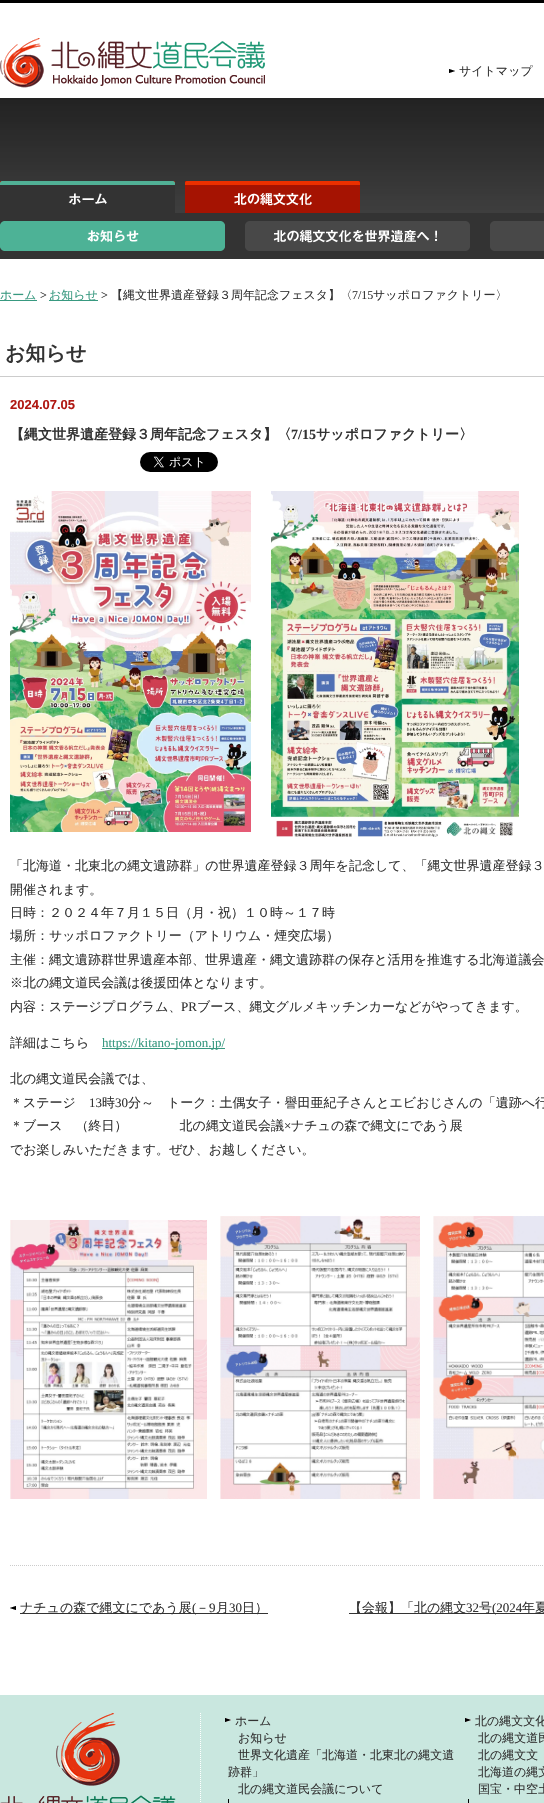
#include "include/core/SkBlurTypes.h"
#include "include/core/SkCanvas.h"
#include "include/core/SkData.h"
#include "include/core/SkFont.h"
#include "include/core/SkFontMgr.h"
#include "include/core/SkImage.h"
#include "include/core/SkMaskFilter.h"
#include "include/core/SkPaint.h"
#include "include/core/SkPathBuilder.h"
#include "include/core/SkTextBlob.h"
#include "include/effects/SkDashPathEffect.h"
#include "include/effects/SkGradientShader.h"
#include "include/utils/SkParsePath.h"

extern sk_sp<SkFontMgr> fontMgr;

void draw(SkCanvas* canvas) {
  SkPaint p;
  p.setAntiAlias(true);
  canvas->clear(SK_ColorWHITE);
  p.setColor(SK_ColorBLACK);
  canvas->drawRect(SkRect::MakeLTRB(0, 0, 544, 3), p);
  canvas->drawImageRect(SkImages::DeferredFromEncodedData(SkData::MakeFromFileName("images/1.png")), SkRect::MakeLTRB(0, 38, 265, 88), SkSamplingOptions());
  canvas->drawImageRect(SkImages::DeferredFromEncodedData(SkData::MakeFromFileName("images/2.png")), SkRect::MakeLTRB(449, 69, 455, 73), SkSamplingOptions());
  canvas->drawImageRect(SkImages::DeferredFromEncodedData(SkData::MakeFromFileName("images/3.png")), SkRect::MakeLTRB(0, 98, 544, 213), SkSamplingOptions());
  canvas->drawImageRect(SkImages::DeferredFromEncodedData(SkData::MakeFromFileName("images/4.png")), SkRect::MakeLTRB(0, 181, 175, 213), SkSamplingOptions());
  canvas->drawImageRect(SkImages::DeferredFromEncodedData(SkData::MakeFromFileName("images/5.png")), SkRect::MakeLTRB(185, 181, 360, 213), SkSamplingOptions());
  p.setColor(SkColorSetRGB(51, 51, 51));
  canvas->drawRect(SkRect::MakeLTRB(0, 213, 544, 259), p);
  canvas->drawImageRect(SkImages::DeferredFromEncodedData(SkData::MakeFromFileName("images/6.png")), SkRect::MakeLTRB(0, 221, 225, 251), SkSamplingOptions());
  canvas->drawImageRect(SkImages::DeferredFromEncodedData(SkData::MakeFromFileName("images/7.png")), SkRect::MakeLTRB(245, 221, 470, 251), SkSamplingOptions());
  canvas->drawImageRect(SkImages::DeferredFromEncodedData(SkData::MakeFromFileName("images/8.png")), SkRect::MakeLTRB(490, 221, 544, 251), SkSamplingOptions());
  p.setColor(SkColorSetRGB(56, 153, 128));
  canvas->drawRect(SkRect::MakeLTRB(0, 300, 37, 301), p);
  canvas->drawRect(SkRect::MakeLTRB(49, 300, 98, 301), p);
  p.setColor(SkColorSetRGB(204, 204, 204));
  canvas->drawRect(SkRect::MakeLTRB(0, 376, 544, 377), p);
  p.setStyle(SkPaint::kStroke_Style);
  p.setStrokeWidth(1);
  p.setPathEffect(SkDashPathEffect::Make({{1, 1}}, 0));
  canvas->drawPath(SkPathBuilder().moveTo(10, 1565.5f).lineTo(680, 1565.5f).detach(), p);
  p.setPathEffect(nullptr);
  canvas->drawImageRect(SkImages::DeferredFromEncodedData(SkData::MakeFromFileName("images/9.png")), SkRect::MakeLTRB(140, 452, 218, 472), SkSamplingOptions());
  canvas->drawImageRect(SkImages::DeferredFromEncodedData(SkData::MakeFromFileName("images/10.png")), SkRect::MakeLTRB(10, 491, 251, 832), SkSamplingOptions());
  canvas->drawImageRect(SkImages::DeferredFromEncodedData(SkData::MakeFromFileName("images/11.png")), SkRect::MakeLTRB(271, 491, 519, 837), SkSamplingOptions());
  p.setStyle(SkPaint::kFill_Style);
  p.setColor(SkColorSetRGB(56, 153, 128));
  canvas->drawRect(SkRect::MakeLTRB(102, 1048, 225, 1049), p);
  canvas->drawImageRect(SkImages::DeferredFromEncodedData(SkData::MakeFromFileName("images/12.png")), SkRect::MakeLTRB(10, 1220, 207, 1499), SkSamplingOptions());
  canvas->drawImageRect(SkImages::DeferredFromEncodedData(SkData::MakeFromFileName("images/13.png")), SkRect::MakeLTRB(220, 1216, 420, 1499), SkSamplingOptions());
  canvas->drawImageRect(SkImages::DeferredFromEncodedData(SkData::MakeFromFileName("images/14.png")), SkRect::MakeLTRB(433, 1216, 544, 1499), SkSamplingOptions());
  canvas->drawImageRect(SkImages::DeferredFromEncodedData(SkData::MakeFromFileName("images/15.png")), SkRect::MakeLTRB(10, 1606, 16, 1610), SkSamplingOptions());
  p.setColor(SkColorSetRGB(51, 51, 51));
  canvas->drawRect(SkRect::MakeLTRB(20, 1613, 268, 1614), p);
  canvas->drawRect(SkRect::MakeLTRB(349, 1613, 544, 1614), p);
  p.setColor(SkColorSetRGB(201, 231, 223));
  canvas->drawRect(SkRect::MakeLTRB(0, 1695, 544, 1803), p);
  p.setStyle(SkPaint::kStroke_Style);
  p.setColor(SK_ColorWHITE);
  p.setPathEffect(SkDashPathEffect::Make({{1, 1}}, 0));
  canvas->drawPath(SkPathBuilder().moveTo(200.5f, 1713).lineTo(200.5f, 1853).detach(), p);
  p.setPathEffect(nullptr);
  canvas->drawImageRect(SkImages::DeferredFromEncodedData(SkData::MakeFromFileName("images/16.png")), SkRect::MakeLTRB(0, 1713, 176, 1803), SkSamplingOptions());
  canvas->drawImageRect(SkImages::DeferredFromEncodedData(SkData::MakeFromFileName("images/17.png")), SkRect::MakeLTRB(225, 1718, 231, 1722), SkSamplingOptions());
  p.setStyle(SkPaint::kFill_Style);
  p.setColor(SK_ColorBLACK);
  canvas->drawRect(SkRect::MakeLTRB(228, 1799, 229, 1803), p);
  canvas->drawImageRect(SkImages::DeferredFromEncodedData(SkData::MakeFromFileName("images/17.png")), SkRect::MakeLTRB(465, 1718, 471, 1722), SkSamplingOptions());
  canvas->drawRect(SkRect::MakeLTRB(468, 1799, 469, 1803), p);
  SkFont font1(fontMgr->matchFamilyStyle("WenQuanYi Zen Hei", SkFontStyle(500, SkFontStyle::kNormal_Width, SkFontStyle::kUpright_Slant)), 12);
  font1.setSubpixel(true);
  p.setColor(SkColorSetRGB(51, 51, 51));
  canvas->drawString("サイトマップ", 459, 75, font1, p);
  p.setColor(SkColorSetRGB(56, 153, 128));
  canvas->drawString("ホーム", 0, 299, font1, p);
  SkFont font2(fontMgr->matchFamilyStyle("Liberation Serif", SkFontStyle::Normal()), 12);
  font2.setSubpixel(true);
  p.setColor(SkColorSetRGB(51, 51, 51));
  canvas->drawString(">", 40, 299, font2, p);
  p.setColor(SkColorSetRGB(56, 153, 128));
  canvas->drawString("お知らせ", 49, 299, font1, p);
  p.setColor(SkColorSetRGB(51, 51, 51));
  canvas->drawString(">", 101, 299, font2, p);
  canvas->drawString("【縄文世界遺産登録３周年記念フェスタ】〈", 111, 299, font1, p);
  canvas->drawString("7/15", 352, 299, font2, p);
  canvas->drawString("サッポロファクトリー〉", 373, 299, font1, p);
  SkFont font3(fontMgr->matchFamilyStyle("WenQuanYi Zen Hei", SkFontStyle::Bold()), 20);
  font3.setSubpixel(true);
  canvas->drawString("お知らせ", 5, 360, font3, p);
  SkFont font4(fontMgr->matchFamilyStyle("Liberation Sans", SkFontStyle::Bold()), 13);
  font4.setSubpixel(true);
  p.setColor(SkColorSetRGB(176, 24, 18));
  canvas->drawString("2024.07.05", 10, 409, font4, p);
  SkFont font5(fontMgr->matchFamilyStyle("WenQuanYi Zen Hei", SkFontStyle::Bold()), 14);
  font5.setSubpixel(true);
  p.setColor(SkColorSetRGB(51, 51, 51));
  canvas->drawString("【縄文世界遺産登録３周年記念フェスタ】〈", 10, 439, font5, p);
  SkFont font6(fontMgr->matchFamilyStyle("Liberation Serif", SkFontStyle::Bold()), 14);
  font6.setSubpixel(true);
  canvas->drawString("7/15", 291, 439, font6, p);
  canvas->drawString("サッポロファクトリー〉", 316, 439, font5, p);
  SkFont font7(fontMgr->matchFamilyStyle("WenQuanYi Zen Hei", SkFontStyle(500, SkFontStyle::kNormal_Width, SkFontStyle::kUpright_Slant)), 13);
  font7.setSubpixel(true);
  canvas->drawString("「北海道・北東北の縄文遺跡群」の世界遺産登録３周年を記念して、「縄文世界遺産登録３", 10, 870, font7, p);
  canvas->drawString("開催されます。", 10, 894, font7, p);
  canvas->drawString("日時：２０２４年７月１５日（月・祝）１０時～１７時", 10, 917, font7, p);
  canvas->drawString("場所：サッポロファクトリー（アトリウム・煙突広場）", 10, 940, font7, p);
  canvas->drawString("主催：縄文遺跡群世界遺産本部、世界遺産・縄文遺跡群の保存と活用を推進する北海道議会", 10, 964, font7, p);
  canvas->drawString("※北の縄文道民会議は後援団体となります。", 10, 987, font7, p);
  canvas->drawString("内容：ステージプログラム、", 10, 1011, font7, p);
  SkFont font8(fontMgr->matchFamilyStyle("Liberation Serif", SkFontStyle::Normal()), 13);
  font8.setSubpixel(true);
  canvas->drawString("PR", 181, 1011, font8, p);
  canvas->drawString("ブース、縄文グルメキッチンカーなどがやってきます。", 197, 1011, font7, p);
  canvas->drawString("詳細はこちら", 10, 1047, font7, p);
  p.setColor(SkColorSetRGB(56, 153, 128));
  canvas->drawString("https://kitano-jomon.jp/", 102, 1047, font8, p);
  p.setColor(SkColorSetRGB(51, 51, 51));
  canvas->drawString("北の縄文道民会議では、", 10, 1083, font7, p);
  canvas->drawString("＊ステージ", 10, 1107, font7, p);
  canvas->drawString("13", 89, 1107, font8, p);
  canvas->drawString("時", 102, 1107, font7, p);
  canvas->drawString("30", 115, 1107, font8, p);
  canvas->drawString("分～　トーク：土偶女子・譽田亜紀子さんとエビおじさんの「遺跡へ行", 128, 1107, font7, p);
  canvas->drawString("＊ブース　（終日）　　　　北の縄文道民会議", 10, 1130, font7, p);
  canvas->drawString("×", 284, 1130, font8, p);
  canvas->drawString("ナチュの森で縄文にであう展", 291, 1130, font7, p);
  canvas->drawString("でお楽しみいただきます。ぜひ、お越しください。", 10, 1154, font7, p);
  canvas->drawString("ナチュの森で縄文にであう展", 20, 1612, font7, p);
  canvas->drawString("(", 192, 1612, font8, p);
  canvas->drawString("－", 196, 1612, font7, p);
  canvas->drawString("9", 209, 1612, font8, p);
  canvas->drawString("月", 216, 1612, font7, p);
  canvas->drawString("30", 229, 1612, font8, p);
  canvas->drawString("日）", 242, 1612, font7, p);
  canvas->drawString("【会報】「北の縄文", 349, 1612, font7, p);
  canvas->drawString("32", 466, 1612, font8, p);
  canvas->drawString("号", 479, 1612, font7, p);
  canvas->drawString("(2024", 492, 1612, font8, p);
  canvas->drawString("年夏", 522, 1612, font7, p);
  canvas->drawString("ホーム", 235, 1725, font1, p);
  canvas->drawString("お知らせ", 238, 1742, font1, p);
  canvas->drawString("世界文化遺産「北海道・北東北の縄文遺", 238, 1759, font1, p);
  canvas->drawString("跡群」", 228, 1776, font1, p);
  canvas->drawString("北の縄文道民会議について", 238, 1793, font1, p);
  canvas->drawString("北の縄文文化", 475, 1725, font1, p);
  canvas->drawString("北の縄文道民", 478, 1742, font1, p);
  canvas->drawString("北の縄文文", 478, 1759, font1, p);
  canvas->drawString("北海道の縄文", 478, 1776, font1, p);
  canvas->drawString("国宝・中空土", 478, 1793, font1, p);
}
